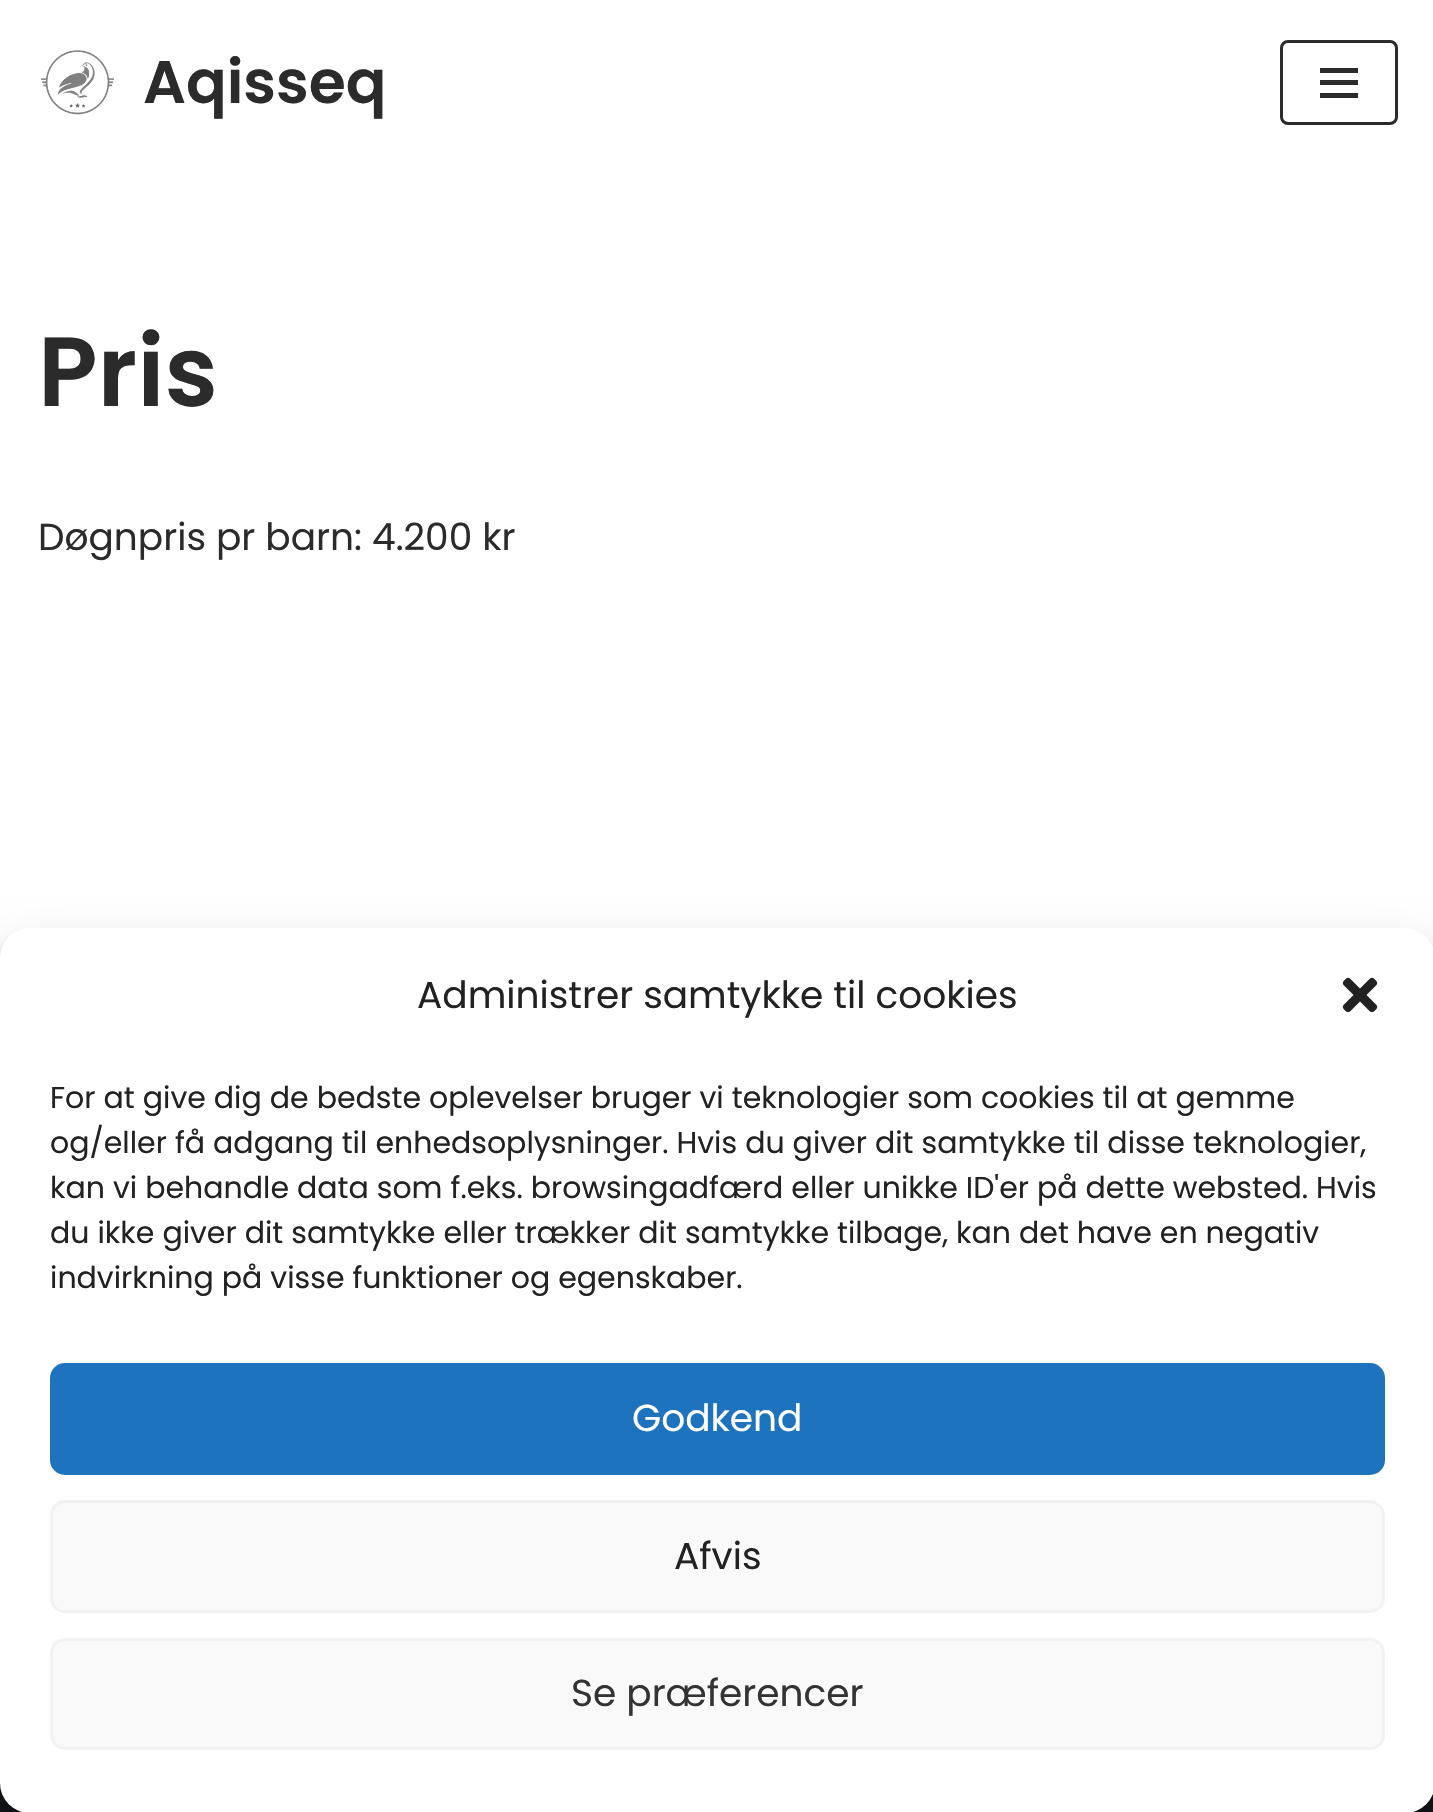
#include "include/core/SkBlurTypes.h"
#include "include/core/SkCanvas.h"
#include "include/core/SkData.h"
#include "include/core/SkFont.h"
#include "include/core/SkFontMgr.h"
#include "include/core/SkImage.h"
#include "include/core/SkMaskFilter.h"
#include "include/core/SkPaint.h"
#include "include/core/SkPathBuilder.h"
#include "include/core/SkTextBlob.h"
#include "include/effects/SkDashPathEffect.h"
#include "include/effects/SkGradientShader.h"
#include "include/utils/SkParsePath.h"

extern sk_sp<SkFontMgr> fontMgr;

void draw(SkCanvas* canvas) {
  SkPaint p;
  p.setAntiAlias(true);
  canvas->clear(SK_ColorWHITE);
  canvas->drawImageRect(SkImages::DeferredFromEncodedData(SkData::MakeFromFileName("images/1.png")), SkRect::MakeLTRB(41, 50, 115, 115), SkSamplingOptions());
  p.setStyle(SkPaint::kStroke_Style);
  p.setStrokeWidth(3);
  p.setColor(SkColorSetRGB(43, 43, 43));
  canvas->drawRoundRect(SkRect::MakeLTRB(1281.5f, 41.5f, 1396.5f, 123.5f), 6.5f, 6.5f, p);
  p.setStyle(SkPaint::kFill_Style);
  canvas->drawRect(SkRect::MakeLTRB(1320, 68, 1358, 73), p);
  canvas->drawRect(SkRect::MakeLTRB(1320, 80, 1358, 85), p);
  canvas->drawRect(SkRect::MakeLTRB(1320, 93, 1358, 98), p);
  p.setColor(SkColorSetRGB(20, 23, 28));
  canvas->drawRect(SkRect::MakeLTRB(0, 1783, 1433, 1812), p);
  p.setColor(SkColorSetARGB(59, 0, 0, 0));
  p.setMaskFilter(SkMaskFilter::MakeBlur(kNormal_SkBlurStyle, 7.5f));
  canvas->drawRoundRect(SkRect::MakeLTRB(0, 943, 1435, 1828), 30, 30, p);
  p.setMaskFilter(nullptr);
  p.setColor(SkColorSetARGB(48, 0, 0, 0));
  p.setMaskFilter(SkMaskFilter::MakeBlur(kNormal_SkBlurStyle, 25));
  canvas->drawRoundRect(SkRect::MakeLTRB(0, 953, 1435, 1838), 30, 30, p);
  p.setMaskFilter(nullptr);
  p.setColor(SK_ColorWHITE);
  canvas->drawRoundRect(SkRect::MakeLTRB(0, 928, 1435, 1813), 30, 30, p);
  canvas->drawImageRect(SkImages::DeferredFromEncodedData(SkData::MakeFromFileName("images/2.png")), SkRect::MakeLTRB(1342, 977, 1378, 1013), SkSamplingOptions());
  p.setColor(SkColorSetRGB(30, 115, 190));
  canvas->drawRoundRect(SkRect::MakeLTRB(51.5f, 1364.5f, 1383.5f, 1473.5f), 13.5f, 13.5f, p);
  p.setStyle(SkPaint::kStroke_Style);
  canvas->drawRoundRect(SkRect::MakeLTRB(51.5f, 1364.5f, 1383.5f, 1473.5f), 13.5f, 13.5f, p);
  p.setStyle(SkPaint::kFill_Style);
  p.setColor(SkColorSetRGB(249, 249, 249));
  canvas->drawRoundRect(SkRect::MakeLTRB(51.5f, 1501.5f, 1383.5f, 1611.5f), 13.5f, 13.5f, p);
  p.setStyle(SkPaint::kStroke_Style);
  p.setColor(SkColorSetRGB(242, 242, 242));
  canvas->drawRoundRect(SkRect::MakeLTRB(51.5f, 1501.5f, 1383.5f, 1611.5f), 13.5f, 13.5f, p);
  p.setStyle(SkPaint::kFill_Style);
  p.setColor(SkColorSetRGB(249, 249, 249));
  canvas->drawRoundRect(SkRect::MakeLTRB(51.5f, 1639.5f, 1383.5f, 1748.5f), 13.5f, 13.5f, p);
  p.setStyle(SkPaint::kStroke_Style);
  p.setColor(SkColorSetRGB(242, 242, 242));
  canvas->drawRoundRect(SkRect::MakeLTRB(51.5f, 1639.5f, 1383.5f, 1748.5f), 13.5f, 13.5f, p);
  SkFont font1(fontMgr->matchFamilyStyle("Poppins", SkFontStyle(600, SkFontStyle::kNormal_Width, SkFontStyle::kUpright_Slant)), 60);
  font1.setSubpixel(true);
  p.setStyle(SkPaint::kFill_Style);
  p.setColor(SkColorSetRGB(43, 43, 43));
  canvas->drawString("Aqisseq", 143, 103, font1, p);
  SkFont font2(fontMgr->matchFamilyStyle("Poppins", SkFontStyle(600, SkFontStyle::kNormal_Width, SkFontStyle::kUpright_Slant)), 98);
  font2.setSubpixel(true);
  canvas->drawString("Pris", 38, 406, font2, p);
  SkFont font3(fontMgr->matchFamilyStyle("Poppins", SkFontStyle::Normal()), 37.5f);
  font3.setSubpixel(true);
  canvas->drawString("Døgnpris pr barn: 4.200 kr", 38, 550, font3, p);
  p.setColor(SkColorSetRGB(34, 34, 34));
  canvas->drawString("Administrer samtykke til cookies", 417, 1008, font3, p);
  SkFont font4(fontMgr->matchFamilyStyle("Poppins", SkFontStyle::Normal()), 30);
  font4.setSubpixel(true);
  canvas->drawString("For at give dig de bedste oplevelser bruger vi teknologier som cookies til at gemme", 50, 1108, font4, p);
  canvas->drawString("og/eller få adgang til enhedsoplysninger. Hvis du giver dit samtykke til disse teknologier,", 50, 1153, font4, p);
  canvas->drawString("kan vi behandle data som f.eks. browsingadfærd eller unikke ID'er på dette websted. Hvis", 50, 1198, font4, p);
  canvas->drawString("du ikke giver dit samtykke eller trækker dit samtykke tilbage, kan det have en negativ", 50, 1243, font4, p);
  canvas->drawString("indvirkning på visse funktioner og egenskaber.", 50, 1288, font4, p);
  p.setColor(SK_ColorWHITE);
  canvas->drawString("Godkend", 632, 1431, font3, p);
  p.setColor(SkColorSetRGB(34, 34, 34));
  canvas->drawString("Afvis", 674, 1569, font3, p);
  p.setColor(SkColorSetRGB(51, 51, 51));
  canvas->drawString("Se præferencer", 571, 1706, font3, p);
}
